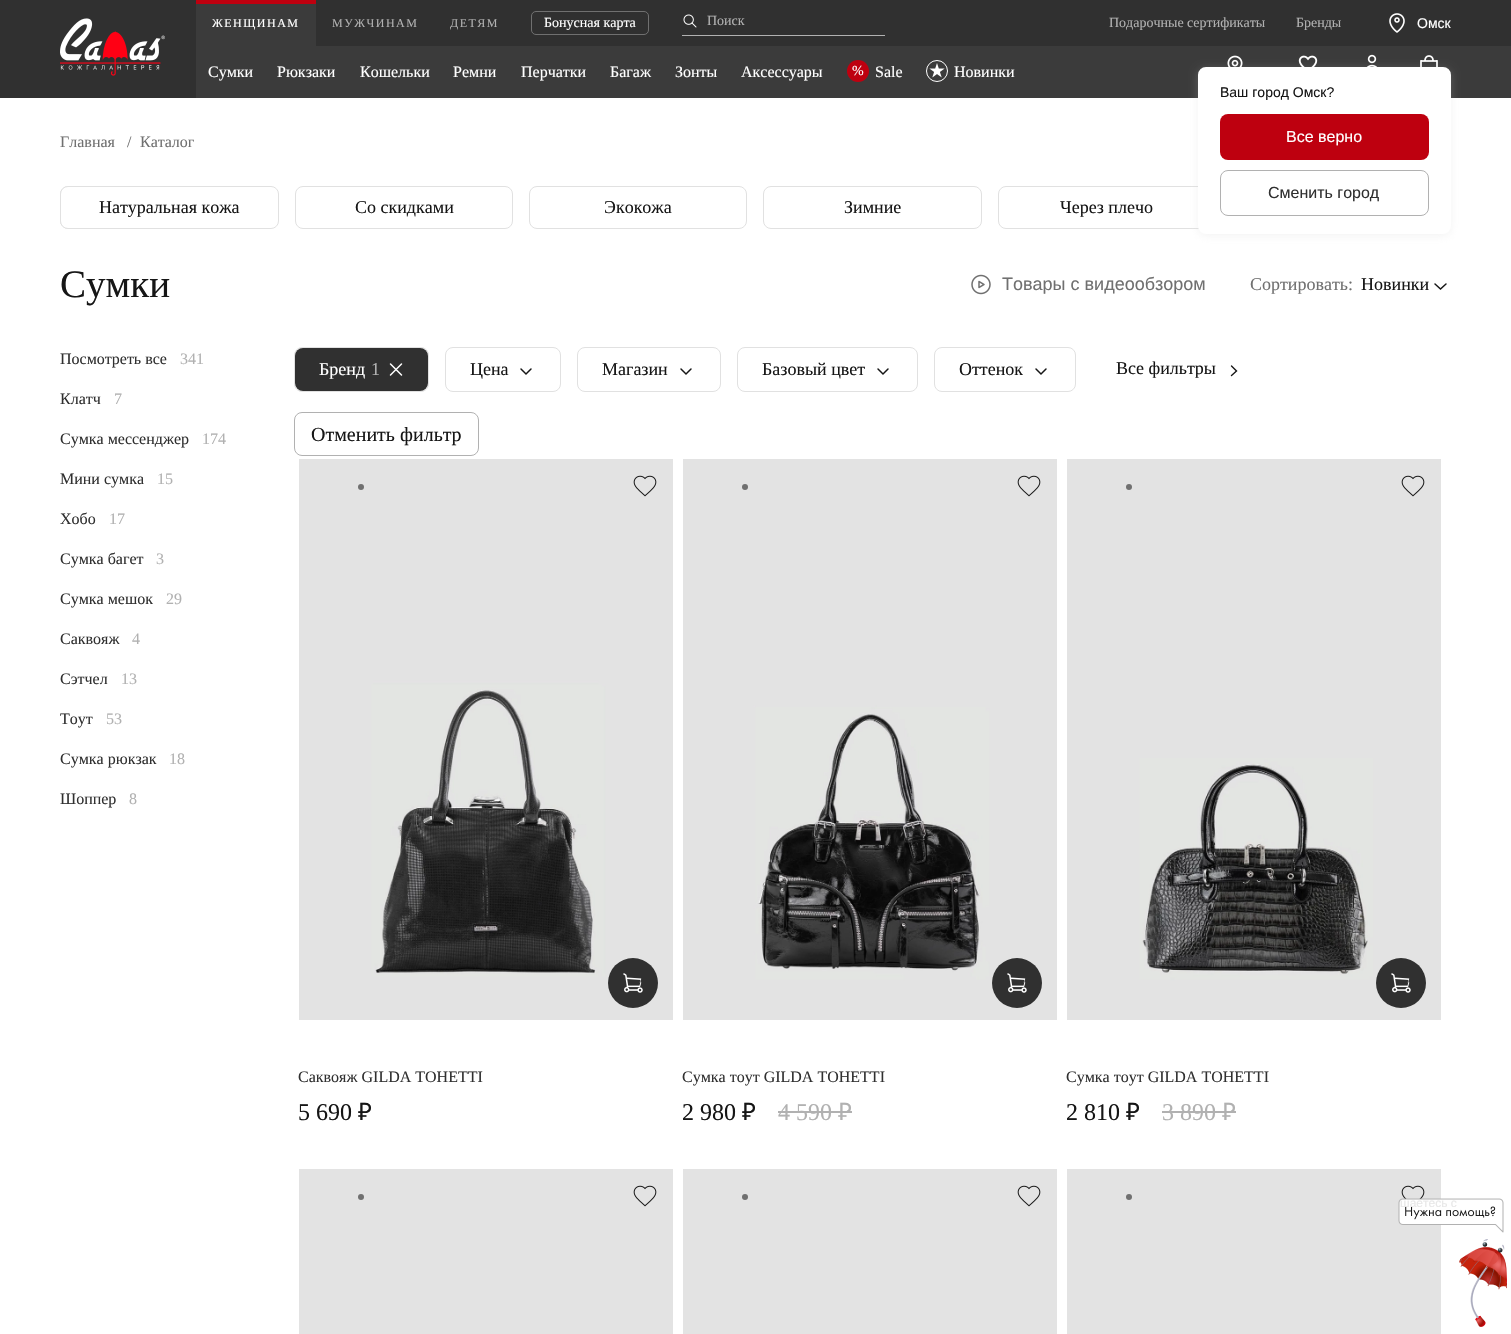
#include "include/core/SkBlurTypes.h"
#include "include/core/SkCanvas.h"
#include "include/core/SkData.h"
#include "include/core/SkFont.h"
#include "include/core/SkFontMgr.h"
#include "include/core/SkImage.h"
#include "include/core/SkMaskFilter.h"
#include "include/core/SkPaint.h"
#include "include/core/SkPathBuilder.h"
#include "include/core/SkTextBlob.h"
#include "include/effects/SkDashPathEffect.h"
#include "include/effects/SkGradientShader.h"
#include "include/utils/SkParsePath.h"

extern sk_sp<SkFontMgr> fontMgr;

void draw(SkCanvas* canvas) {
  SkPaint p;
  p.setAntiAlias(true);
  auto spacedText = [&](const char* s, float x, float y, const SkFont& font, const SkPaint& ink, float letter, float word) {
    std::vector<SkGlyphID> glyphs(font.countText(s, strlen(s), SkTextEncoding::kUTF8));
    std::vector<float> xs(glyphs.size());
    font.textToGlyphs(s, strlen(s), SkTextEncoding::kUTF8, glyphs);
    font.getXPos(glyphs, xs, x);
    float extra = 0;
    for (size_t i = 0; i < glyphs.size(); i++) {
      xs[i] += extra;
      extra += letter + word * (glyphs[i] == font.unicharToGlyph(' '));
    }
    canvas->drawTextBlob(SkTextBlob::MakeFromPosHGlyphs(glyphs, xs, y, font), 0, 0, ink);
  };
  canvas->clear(SK_ColorWHITE);
  p.setColor(SkColorSetRGB(48, 48, 48));
  canvas->drawRect(SkRect::MakeLTRB(0, 0, 1511, 98), p);
  canvas->drawImageRect(SkImages::DeferredFromEncodedData(SkData::MakeFromFileName("images/1.png")), SkRect::MakeLTRB(60, 18, 165, 76), SkSamplingOptions());
  p.setStyle(SkPaint::kStroke_Style);
  p.setStrokeWidth(1);
  p.setColor(SkColorSetRGB(112, 112, 112));
  canvas->drawRoundRect(SkRect::MakeLTRB(531.5f, 11.5f, 648.5f, 34.5f), 4.5f, 4.5f, p);
  p.setStyle(SkPaint::kFill_Style);
  p.setColor(SkColorSetRGB(177, 177, 177));
  canvas->drawRect(SkRect::MakeLTRB(682, 35, 885, 36), p);
  canvas->drawImageRect(SkImages::DeferredFromEncodedData(SkData::MakeFromFileName("images/2.png")), SkRect::MakeLTRB(683, 14, 697, 28), SkSamplingOptions());
  p.setColor(SkColorSetRGB(59, 59, 59));
  canvas->drawRect(SkRect::MakeLTRB(196, 4, 316, 46), p);
  p.setColor(SkColorSetRGB(190, 0, 15));
  canvas->drawRect(SkRect::MakeLTRB(196, 0, 316, 4), p);
  canvas->drawImageRect(SkImages::DeferredFromEncodedData(SkData::MakeFromFileName("images/3.png")), SkRect::MakeLTRB(1389, 13, 1405, 33), SkSamplingOptions());
  p.setColor(SkColorSetRGB(59, 59, 59));
  canvas->drawRect(SkRect::MakeLTRB(196, 46, 1511, 98), p);
  canvas->drawImageRect(SkImages::DeferredFromEncodedData(SkData::MakeFromFileName("images/4.png")), SkRect::MakeLTRB(1227, 55, 1243, 67), SkSamplingOptions());
  canvas->drawImageRect(SkImages::DeferredFromEncodedData(SkData::MakeFromFileName("images/5.png")), SkRect::MakeLTRB(1298, 55, 1318, 67), SkSamplingOptions());
  canvas->drawImageRect(SkImages::DeferredFromEncodedData(SkData::MakeFromFileName("images/6.png")), SkRect::MakeLTRB(1366, 54, 1378, 67), SkSamplingOptions());
  canvas->drawImageRect(SkImages::DeferredFromEncodedData(SkData::MakeFromFileName("images/7.png")), SkRect::MakeLTRB(1420, 55, 1438, 67), SkSamplingOptions());
  p.setStyle(SkPaint::kStroke_Style);
  p.setColor(SkColorSetRGB(225, 225, 225));
  canvas->drawRoundRect(SkRect::MakeLTRB(998.5f, 186.5f, 1215.5f, 228.5f), 7.5f, 7.5f, p);
  p.setStyle(SkPaint::kFill_Style);
  p.setColor(SkColorSetARGB(64, 209, 209, 209));
  p.setMaskFilter(SkMaskFilter::MakeBlur(kNormal_SkBlurStyle, 4));
  canvas->drawRoundRect(SkRect::MakeLTRB(1198, 69, 1451, 236), 8, 8, p);
  p.setMaskFilter(nullptr);
  p.setColor(SK_ColorWHITE);
  canvas->drawRoundRect(SkRect::MakeLTRB(1199, 68, 1450, 233), 7, 7, p);
  p.setStyle(SkPaint::kStroke_Style);
  p.setStrokeWidth(2);
  canvas->drawRoundRect(SkRect::MakeLTRB(1199, 68, 1450, 233), 7, 7, p);
  p.setStyle(SkPaint::kFill_Style);
  p.setColor(SkColorSetRGB(190, 0, 15));
  canvas->drawRoundRect(SkRect::MakeLTRB(1220, 114, 1429, 160), 8, 8, p);
  p.setStyle(SkPaint::kStroke_Style);
  p.setStrokeWidth(1);
  p.setColor(SkColorSetRGB(177, 177, 177));
  canvas->drawRoundRect(SkRect::MakeLTRB(1220.5f, 170.5f, 1428.5f, 215.5f), 7.5f, 7.5f, p);
  p.setStyle(SkPaint::kFill_Style);
  p.setColor(SkColorSetRGB(190, 0, 15));
  canvas->drawCircle(858, 71, 11, p);
  p.setStyle(SkPaint::kStroke_Style);
  p.setColor(SK_ColorWHITE);
  canvas->drawCircle(937, 71, 10.5f, p);
  canvas->drawImageRect(SkImages::DeferredFromEncodedData(SkData::MakeFromFileName("images/8.png")), SkRect::MakeLTRB(929, 63, 945, 78), SkSamplingOptions());
  p.setColor(SkColorSetRGB(225, 225, 225));
  canvas->drawRoundRect(SkRect::MakeLTRB(60.5f, 186.5f, 114.5f, 228.5f), 7.5f, 7.5f, p);
  p.setStyle(SkPaint::kFill_Style);
  p.setColor(SK_ColorWHITE);
  canvas->drawRoundRect(SkRect::MakeLTRB(60.5f, 186.5f, 278.5f, 228.5f), 7.5f, 7.5f, p);
  p.setStyle(SkPaint::kStroke_Style);
  p.setColor(SkColorSetRGB(225, 225, 225));
  canvas->drawRoundRect(SkRect::MakeLTRB(60.5f, 186.5f, 278.5f, 228.5f), 7.5f, 7.5f, p);
  canvas->drawRoundRect(SkRect::MakeLTRB(295.5f, 186.5f, 512.5f, 228.5f), 7.5f, 7.5f, p);
  canvas->drawRoundRect(SkRect::MakeLTRB(529.5f, 186.5f, 746.5f, 228.5f), 7.5f, 7.5f, p);
  canvas->drawRoundRect(SkRect::MakeLTRB(763.5f, 186.5f, 981.5f, 228.5f), 7.5f, 7.5f, p);
  canvas->drawImageRect(SkImages::DeferredFromEncodedData(SkData::MakeFromFileName("images/9.png")), SkRect::MakeLTRB(971, 274, 991, 295), SkSamplingOptions());
  p.setStrokeWidth(1.5f);
  p.setStrokeCap(SkPaint::kRound_Cap);
  p.setColor(SkColorSetRGB(22, 22, 22));
  canvas->drawPath(SkPathBuilder().moveTo(1435, 284).lineTo(1440.5f, 289).lineTo(1446, 284).detach(), p);
  p.setStrokeWidth(1);
  p.setStrokeCap(SkPaint::kButt_Cap);
  p.setColor(SkColorSetRGB(225, 225, 225));
  canvas->drawRoundRect(SkRect::MakeLTRB(294.5f, 347.5f, 428.5f, 391.5f), 7.5f, 7.5f, p);
  p.setStyle(SkPaint::kFill_Style);
  p.setColor(SkColorSetRGB(48, 48, 48));
  canvas->drawRoundRect(SkRect::MakeLTRB(295, 348, 428, 391), 8, 8, p);
  p.setStyle(SkPaint::kStroke_Style);
  p.setStrokeWidth(1.5f);
  p.setStrokeCap(SkPaint::kRound_Cap);
  p.setStrokeJoin(SkPaint::kRound_Join);
  p.setColor(SK_ColorWHITE);
  canvas->drawPath(SkPathBuilder().moveTo(401.5f, 375).lineTo(390.5f, 364).moveTo(401.5f, 364).lineTo(390.5f, 375).detach(), p);
  p.setStrokeWidth(1);
  p.setStrokeCap(SkPaint::kButt_Cap);
  p.setStrokeJoin(SkPaint::kMiter_Join);
  p.setColor(SkColorSetRGB(225, 225, 225));
  canvas->drawRoundRect(SkRect::MakeLTRB(445.5f, 347.5f, 560.5f, 391.5f), 7.5f, 7.5f, p);
  p.setStrokeWidth(1.5f);
  p.setStrokeCap(SkPaint::kRound_Cap);
  p.setColor(SkColorSetRGB(22, 22, 22));
  canvas->drawPath(SkPathBuilder().moveTo(521, 369).lineTo(526, 374).lineTo(531, 369).detach(), p);
  p.setStrokeWidth(1);
  p.setStrokeCap(SkPaint::kButt_Cap);
  p.setColor(SkColorSetRGB(225, 225, 225));
  canvas->drawRoundRect(SkRect::MakeLTRB(577.5f, 347.5f, 720.5f, 391.5f), 7.5f, 7.5f, p);
  p.setStrokeWidth(1.5f);
  p.setStrokeCap(SkPaint::kRound_Cap);
  p.setColor(SkColorSetRGB(22, 22, 22));
  canvas->drawPath(SkPathBuilder().moveTo(681, 369).lineTo(686, 374).lineTo(691, 369).detach(), p);
  p.setStrokeWidth(1);
  p.setStrokeCap(SkPaint::kButt_Cap);
  p.setColor(SkColorSetRGB(225, 225, 225));
  canvas->drawRoundRect(SkRect::MakeLTRB(737.5f, 347.5f, 917.5f, 391.5f), 7.5f, 7.5f, p);
  p.setStrokeWidth(1.5f);
  p.setStrokeCap(SkPaint::kRound_Cap);
  p.setColor(SkColorSetRGB(22, 22, 22));
  canvas->drawPath(SkPathBuilder().moveTo(878, 369).lineTo(883, 374).lineTo(888, 369).detach(), p);
  p.setStrokeWidth(1);
  p.setStrokeCap(SkPaint::kButt_Cap);
  p.setColor(SkColorSetRGB(225, 225, 225));
  canvas->drawRoundRect(SkRect::MakeLTRB(934.5f, 347.5f, 1075.5f, 391.5f), 7.5f, 7.5f, p);
  p.setStrokeWidth(1.5f);
  p.setStrokeCap(SkPaint::kRound_Cap);
  p.setColor(SkColorSetRGB(22, 22, 22));
  canvas->drawPath(SkPathBuilder().moveTo(1036, 369).lineTo(1041, 374).lineTo(1046, 369).detach(), p);
  p.setStrokeWidth(1.4f);
  canvas->drawPath(SkPathBuilder().moveTo(1231.5f, 375.5f).lineTo(1236.5f, 371).lineTo(1231.5f, 366).detach(), p);
  p.setStrokeWidth(1);
  p.setStrokeCap(SkPaint::kButt_Cap);
  p.setColor(SkColorSetRGB(177, 177, 177));
  canvas->drawRoundRect(SkRect::MakeLTRB(294.5f, 412.5f, 478.5f, 455.5f), 7.5f, 7.5f, p);
  canvas->drawImageRect(SkImages::DeferredFromEncodedData(SkData::MakeFromFileName("images/10.png")), SkRect::MakeLTRB(299, 459, 673, 1020), SkSamplingOptions());
  p.setStyle(SkPaint::kFill_Style);
  p.setColor(SkColorSetRGB(112, 112, 112));
  canvas->drawCircle(361, 487, 3, p);
  p.setColor(SkColorSetRGB(48, 48, 48));
  canvas->drawCircle(633, 983, 25, p);
  canvas->drawImageRect(SkImages::DeferredFromEncodedData(SkData::MakeFromFileName("images/11.png")), SkRect::MakeLTRB(623, 973, 643, 993), SkSamplingOptions());
  canvas->drawImageRect(SkImages::DeferredFromEncodedData(SkData::MakeFromFileName("images/12.png")), SkRect::MakeLTRB(633, 475, 657, 497), SkSamplingOptions());
  canvas->drawImageRect(SkImages::DeferredFromEncodedData(SkData::MakeFromFileName("images/13.png")), SkRect::MakeLTRB(683, 459, 1057, 1020), SkSamplingOptions());
  p.setColor(SkColorSetRGB(112, 112, 112));
  canvas->drawCircle(745, 487, 3, p);
  p.setColor(SkColorSetRGB(48, 48, 48));
  canvas->drawCircle(1017, 983, 25, p);
  canvas->drawImageRect(SkImages::DeferredFromEncodedData(SkData::MakeFromFileName("images/11.png")), SkRect::MakeLTRB(1007, 973, 1027, 993), SkSamplingOptions());
  canvas->drawImageRect(SkImages::DeferredFromEncodedData(SkData::MakeFromFileName("images/12.png")), SkRect::MakeLTRB(1017, 475, 1041, 497), SkSamplingOptions());
  p.setColor(SkColorSetRGB(177, 177, 177));
  canvas->drawRect(SkRect::MakeLTRB(778, 1111, 852, 1113), p);
  canvas->drawImageRect(SkImages::DeferredFromEncodedData(SkData::MakeFromFileName("images/14.png")), SkRect::MakeLTRB(1067, 459, 1441, 1020), SkSamplingOptions());
  p.setColor(SkColorSetRGB(112, 112, 112));
  canvas->drawCircle(1129, 487, 3, p);
  p.setColor(SkColorSetRGB(48, 48, 48));
  canvas->drawCircle(1401, 983, 25, p);
  canvas->drawImageRect(SkImages::DeferredFromEncodedData(SkData::MakeFromFileName("images/11.png")), SkRect::MakeLTRB(1391, 973, 1411, 993), SkSamplingOptions());
  canvas->drawImageRect(SkImages::DeferredFromEncodedData(SkData::MakeFromFileName("images/12.png")), SkRect::MakeLTRB(1401, 475, 1425, 497), SkSamplingOptions());
  p.setColor(SkColorSetRGB(177, 177, 177));
  canvas->drawRect(SkRect::MakeLTRB(1162, 1111, 1236, 1113), p);
  p.setColor(SkColorSetRGB(227, 227, 227));
  canvas->drawRect(SkRect::MakeLTRB(299, 1169, 673, 1334), p);
  p.setColor(SkColorSetRGB(112, 112, 112));
  canvas->drawCircle(361, 1197, 3, p);
  canvas->drawImageRect(SkImages::DeferredFromEncodedData(SkData::MakeFromFileName("images/12.png")), SkRect::MakeLTRB(633, 1185, 657, 1207), SkSamplingOptions());
  p.setColor(SkColorSetRGB(227, 227, 227));
  canvas->drawRect(SkRect::MakeLTRB(683, 1169, 1057, 1334), p);
  p.setColor(SkColorSetRGB(112, 112, 112));
  canvas->drawCircle(745, 1197, 3, p);
  canvas->drawImageRect(SkImages::DeferredFromEncodedData(SkData::MakeFromFileName("images/12.png")), SkRect::MakeLTRB(1017, 1185, 1041, 1207), SkSamplingOptions());
  p.setColor(SkColorSetRGB(227, 227, 227));
  canvas->drawRect(SkRect::MakeLTRB(1067, 1169, 1441, 1334), p);
  p.setColor(SkColorSetRGB(112, 112, 112));
  canvas->drawCircle(1129, 1197, 3, p);
  canvas->drawImageRect(SkImages::DeferredFromEncodedData(SkData::MakeFromFileName("images/15.png")), SkRect::MakeLTRB(1401, 1185, 1425, 1199), SkSamplingOptions());
  canvas->drawImageRect(SkImages::DeferredFromEncodedData(SkData::MakeFromFileName("images/16.png")), SkRect::MakeLTRB(1398, 1198, 1504, 1233), SkSamplingOptions());
  canvas->drawImageRect(SkImages::DeferredFromEncodedData(SkData::MakeFromFileName("images/17.png")), SkRect::MakeLTRB(1459, 1239, 1507, 1327), SkSamplingOptions());
  SkFont font1(fontMgr->matchFamilyStyle("Liberation Serif", SkFontStyle::Normal()), 14);
  font1.setSubpixel(true);
  p.setColor(SK_ColorWHITE);
  canvas->drawString("Бонусная карта", 544, 27, font1, p);
  p.setColor(SkColorSetRGB(177, 177, 177));
  canvas->drawString("Поиск", 707, 25, font1, p);
  canvas->drawString("Подарочные сертификаты", 1109, 27, font1, p);
  canvas->drawString("Бренды", 1296, 27, font1, p);
  SkFont font2(fontMgr->matchFamilyStyle("Liberation Serif", SkFontStyle::Normal()), 12);
  font2.setSubpixel(true);
  p.setColor(SK_ColorWHITE);
  spacedText("ЖЕНЩИНАМ", 212, 27, font2, p, 1.5f, 0);
  p.setColor(SkColorSetRGB(177, 177, 177));
  spacedText("МУЖЧИНАМ", 332, 27, font2, p, 1.5f, 0);
  spacedText("ДЕТЯМ", 450, 27, font2, p, 1.5f, 0);
  SkFont font3(fontMgr->matchFamilyStyle("Liberation Sans", SkFontStyle::Normal()), 14);
  font3.setSubpixel(true);
  p.setColor(SK_ColorWHITE);
  canvas->drawString("Омск", 1417, 28, font3, p);
  p.setColor(SkColorSetRGB(22, 22, 22));
  canvas->drawString("Ваш город Омск?", 1220, 97, font3, p);
  SkFont font4(fontMgr->matchFamilyStyle("Liberation Sans", SkFontStyle::Normal()), 16);
  font4.setSubpixel(true);
  p.setColor(SK_ColorWHITE);
  canvas->drawString("Все верно", 1286, 142, font4, p);
  p.setColor(SkColorSetRGB(48, 48, 48));
  canvas->drawString("Сменить город", 1268, 198, font4, p);
  SkFont font5(fontMgr->matchFamilyStyle("Liberation Serif", SkFontStyle::Normal()), 16);
  font5.setSubpixel(true);
  p.setColor(SK_ColorWHITE);
  canvas->drawString("Сумки", 208, 77, font5, p);
  canvas->drawString("Рюкзаки", 277, 77, font5, p);
  canvas->drawString("Кошельки", 360, 77, font5, p);
  canvas->drawString("Ремни", 453, 77, font5, p);
  canvas->drawString("Перчатки", 521, 77, font5, p);
  canvas->drawString("Багаж", 610, 77, font5, p);
  canvas->drawString("Зонты", 675, 77, font5, p);
  canvas->drawString("Аксессуары", 741, 77, font5, p);
  canvas->drawString("%", 852, 75, font1, p);
  canvas->drawString("Sale", 875, 77, font5, p);
  canvas->drawString("Новинки", 954, 77, font5, p);
  p.setColor(SkColorSetRGB(112, 112, 112));
  canvas->drawString("Главная", 60, 147, font5, p);
  canvas->drawString("/", 127, 147, font5, p);
  canvas->drawString("Каталог", 140, 147, font5, p);
  SkFont font6(fontMgr->matchFamilyStyle("Liberation Serif", SkFontStyle::Normal()), 18);
  font6.setSubpixel(true);
  p.setColor(SkColorSetRGB(22, 22, 22));
  canvas->drawString("Натуральная кожа", 99, 213, font6, p);
  canvas->drawString("Со скидками", 355, 213, font6, p);
  canvas->drawString("Экокожа", 604, 213, font6, p);
  canvas->drawString("Зимние", 844, 213, font6, p);
  canvas->drawString("Через плечо", 1060, 213, font6, p);
  SkFont font7(fontMgr->matchFamilyStyle("Liberation Serif", SkFontStyle::Normal()), 39);
  font7.setSubpixel(true);
  canvas->drawString("Сумки", 60, 297, font7, p);
  SkFont font8(fontMgr->matchFamilyStyle("Liberation Sans", SkFontStyle::Normal()), 18);
  font8.setSubpixel(true);
  p.setColor(SkColorSetRGB(112, 112, 112));
  canvas->drawString("Товары с видеообзором", 1002, 290, font8, p);
  canvas->drawString("Сортировать:", 1250, 290, font6, p);
  p.setColor(SkColorSetRGB(22, 22, 22));
  canvas->drawString("Новинки", 1361, 290, font6, p);
  p.setColor(SkColorSetRGB(48, 48, 48));
  canvas->drawString("Посмотреть все", 60, 364, font5, p);
  p.setColor(SkColorSetRGB(177, 177, 177));
  canvas->drawString("341", 180, 364, font5, p);
  p.setColor(SkColorSetRGB(48, 48, 48));
  canvas->drawString("Клатч", 60, 404, font5, p);
  p.setColor(SkColorSetRGB(177, 177, 177));
  canvas->drawString("7", 114, 404, font5, p);
  p.setColor(SkColorSetRGB(48, 48, 48));
  canvas->drawString("Сумка мессенджер", 60, 444, font5, p);
  p.setColor(SkColorSetRGB(177, 177, 177));
  canvas->drawString("174", 202, 444, font5, p);
  p.setColor(SkColorSetRGB(48, 48, 48));
  canvas->drawString("Мини сумка", 60, 484, font5, p);
  p.setColor(SkColorSetRGB(177, 177, 177));
  canvas->drawString("15", 157, 484, font5, p);
  p.setColor(SkColorSetRGB(48, 48, 48));
  canvas->drawString("Хобо", 60, 524, font5, p);
  p.setColor(SkColorSetRGB(177, 177, 177));
  canvas->drawString("17", 109, 524, font5, p);
  p.setColor(SkColorSetRGB(48, 48, 48));
  canvas->drawString("Сумка багет", 60, 564, font5, p);
  p.setColor(SkColorSetRGB(177, 177, 177));
  canvas->drawString("3", 156, 564, font5, p);
  p.setColor(SkColorSetRGB(48, 48, 48));
  canvas->drawString("Сумка мешок", 60, 604, font5, p);
  p.setColor(SkColorSetRGB(177, 177, 177));
  canvas->drawString("29", 166, 604, font5, p);
  p.setColor(SkColorSetRGB(48, 48, 48));
  canvas->drawString("Саквояж", 60, 644, font5, p);
  p.setColor(SkColorSetRGB(177, 177, 177));
  canvas->drawString("4", 132, 644, font5, p);
  p.setColor(SkColorSetRGB(48, 48, 48));
  canvas->drawString("Сэтчел", 60, 684, font5, p);
  p.setColor(SkColorSetRGB(177, 177, 177));
  canvas->drawString("13", 121, 684, font5, p);
  p.setColor(SkColorSetRGB(48, 48, 48));
  canvas->drawString("Тоут", 60, 724, font5, p);
  p.setColor(SkColorSetRGB(177, 177, 177));
  canvas->drawString("53", 106, 724, font5, p);
  p.setColor(SkColorSetRGB(48, 48, 48));
  canvas->drawString("Сумка рюкзак", 60, 764, font5, p);
  p.setColor(SkColorSetRGB(177, 177, 177));
  canvas->drawString("18", 169, 764, font5, p);
  p.setColor(SkColorSetRGB(48, 48, 48));
  canvas->drawString("Шоппер", 60, 804, font5, p);
  p.setColor(SkColorSetRGB(177, 177, 177));
  canvas->drawString("8", 129, 804, font5, p);
  p.setColor(SK_ColorWHITE);
  canvas->drawString("Бренд", 319, 375, font6, p);
  p.setColor(SkColorSetRGB(177, 177, 177));
  canvas->drawString("1", 371, 375, font6, p);
  p.setColor(SkColorSetRGB(22, 22, 22));
  canvas->drawString("Цена", 470, 375, font6, p);
  canvas->drawString("Магазин", 602, 375, font6, p);
  canvas->drawString("Базовый цвет", 762, 375, font6, p);
  canvas->drawString("Оттенок", 959, 375, font6, p);
  canvas->drawString("Все фильтры", 1116, 374, font6, p);
  SkFont font9(fontMgr->matchFamilyStyle("Liberation Serif", SkFontStyle::Normal()), 20);
  font9.setSubpixel(true);
  canvas->drawString("Отменить фильтр", 311, 441, font9, p);
  p.setColor(SkColorSetRGB(48, 48, 48));
  canvas->drawString("Саквояж GILDA TOHETTI", 298, 1082, font5, p);
  SkFont font10(fontMgr->matchFamilyStyle("Liberation Serif", SkFontStyle::Normal()), 24);
  font10.setSubpixel(true);
  p.setColor(SkColorSetRGB(22, 22, 22));
  canvas->drawString("5 690", 298, 1120, font10, p);
  SkFont font11(fontMgr->matchFamilyStyle("Noto Sans", SkFontStyle::Normal()), 24);
  font11.setSubpixel(true);
  canvas->drawString("₽", 358, 1120, font11, p);
  p.setColor(SkColorSetRGB(48, 48, 48));
  canvas->drawString("Сумка тоут GILDA TOHETTI", 682, 1082, font5, p);
  p.setColor(SkColorSetRGB(22, 22, 22));
  canvas->drawString("2 980", 682, 1120, font10, p);
  canvas->drawString("₽", 742, 1120, font11, p);
  p.setColor(SkColorSetRGB(177, 177, 177));
  canvas->drawString("4 590", 778, 1120, font10, p);
  canvas->drawString("₽", 838, 1120, font11, p);
  p.setColor(SkColorSetRGB(48, 48, 48));
  canvas->drawString("Сумка тоут GILDA TOHETTI", 1066, 1082, font5, p);
  p.setColor(SkColorSetRGB(22, 22, 22));
  canvas->drawString("2 810", 1066, 1120, font10, p);
  canvas->drawString("₽", 1126, 1120, font11, p);
  p.setColor(SkColorSetRGB(177, 177, 177));
  canvas->drawString("3 890", 1162, 1120, font10, p);
  canvas->drawString("₽", 1222, 1120, font11, p);
  SkFont font12(fontMgr->matchFamilyStyle("Liberation Sans", SkFontStyle::Normal()), 12);
  font12.setSubpixel(true);
  p.setColor(SkColorSetRGB(232, 232, 232));
  canvas->drawString("шаетесь с", 1400, 1207, font12, p);
}
